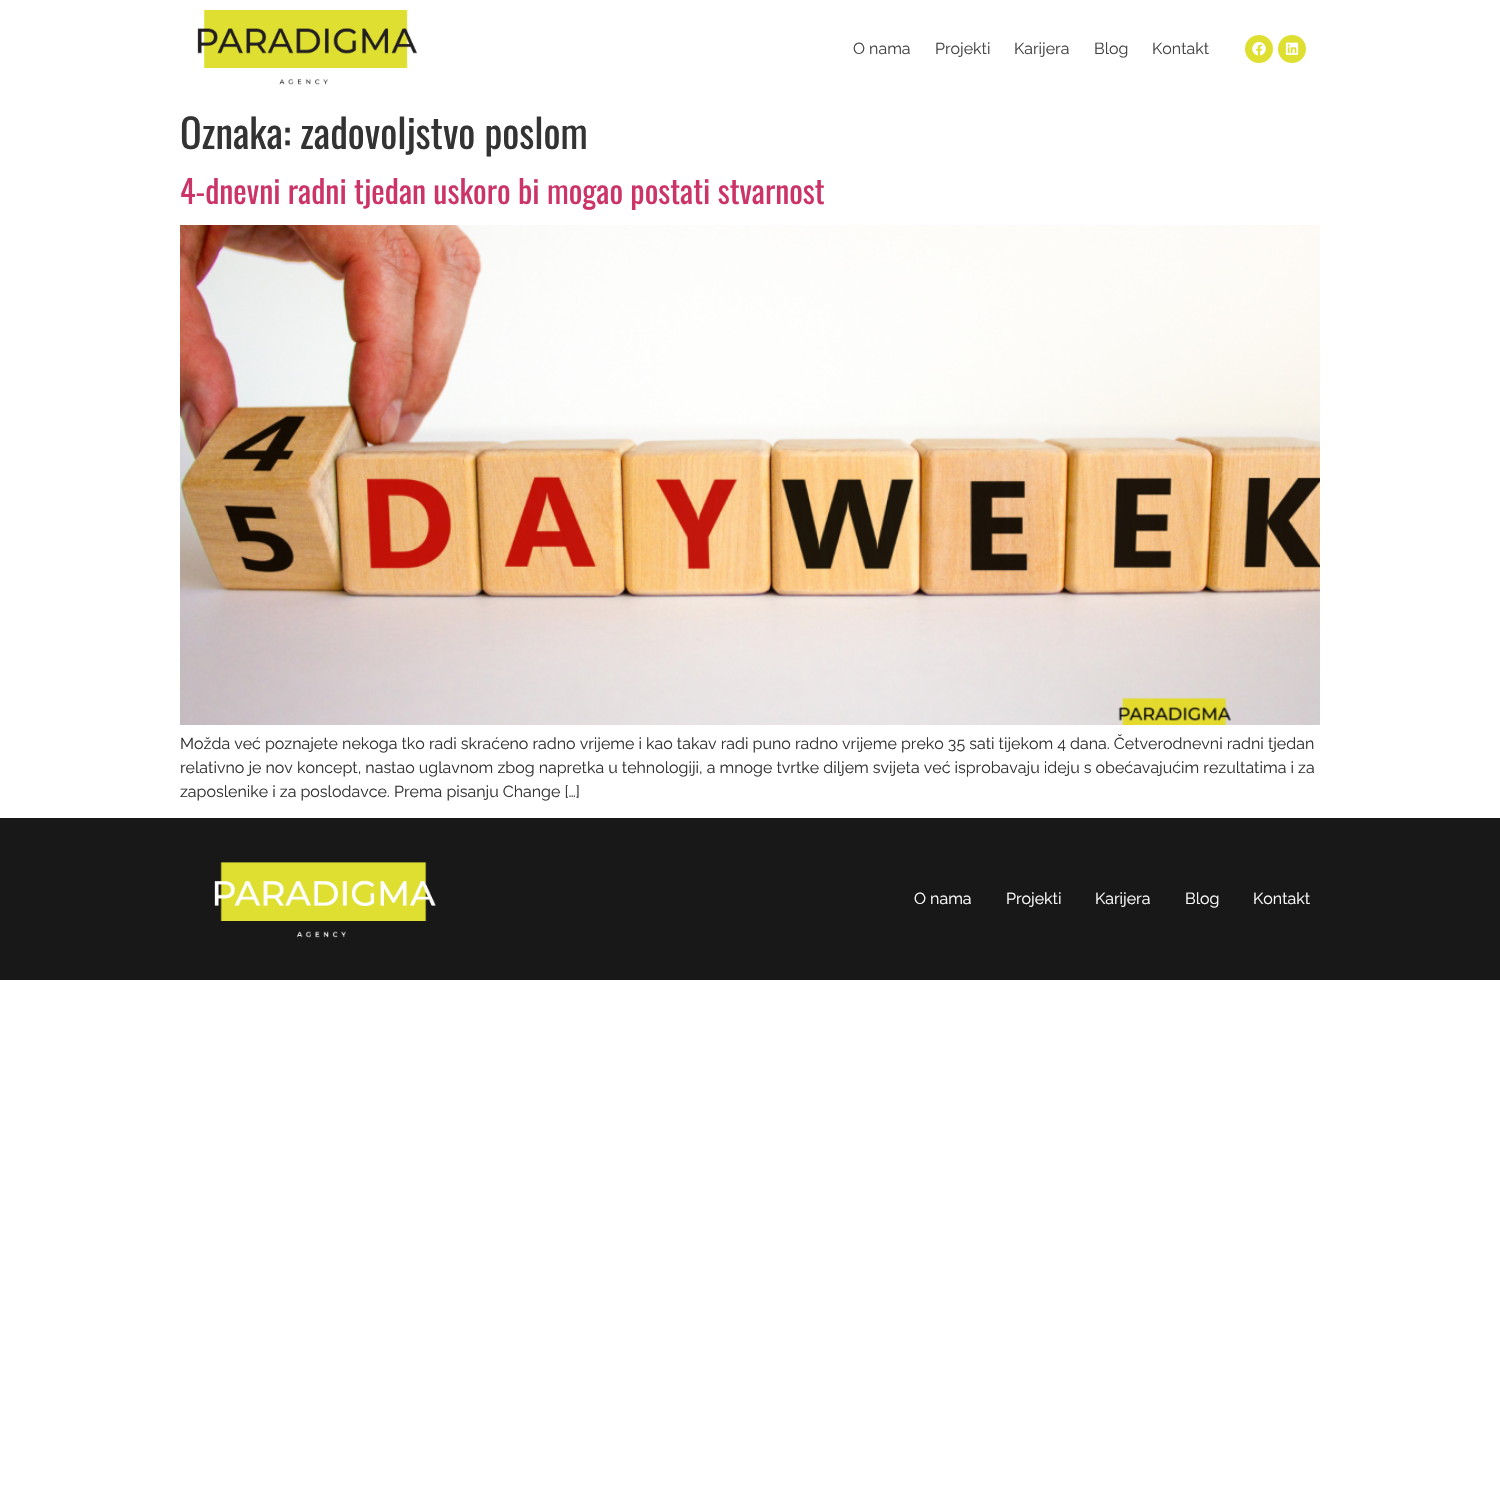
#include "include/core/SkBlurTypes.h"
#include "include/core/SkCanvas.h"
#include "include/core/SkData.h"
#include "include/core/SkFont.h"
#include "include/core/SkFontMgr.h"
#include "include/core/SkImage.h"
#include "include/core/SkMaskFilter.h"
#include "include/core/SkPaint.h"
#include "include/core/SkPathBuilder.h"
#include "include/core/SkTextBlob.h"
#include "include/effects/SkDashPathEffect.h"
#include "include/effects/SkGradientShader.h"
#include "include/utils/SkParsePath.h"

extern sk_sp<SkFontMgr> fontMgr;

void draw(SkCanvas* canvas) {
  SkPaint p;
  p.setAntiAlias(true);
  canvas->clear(SK_ColorWHITE);
  canvas->drawImageRect(SkImages::DeferredFromEncodedData(SkData::MakeFromFileName("images/1.png")), SkRect::MakeLTRB(197, 10, 417, 85), SkSamplingOptions());
  p.setColor(SkColorSetRGB(222, 223, 49));
  canvas->drawCircle(1259, 49, 14, p);
  canvas->drawImageRect(SkImages::DeferredFromEncodedData(SkData::MakeFromFileName("images/2.png")), SkRect::MakeLTRB(1252, 42, 1266, 56), SkSamplingOptions());
  canvas->drawCircle(1292, 49, 14, p);
  canvas->drawImageRect(SkImages::DeferredFromEncodedData(SkData::MakeFromFileName("images/3.png")), SkRect::MakeLTRB(1285, 42, 1299, 55), SkSamplingOptions());
  canvas->drawImageRect(SkImages::DeferredFromEncodedData(SkData::MakeFromFileName("images/4.png")), SkRect::MakeLTRB(180, 225, 1320, 725), SkSamplingOptions());
  p.setColor(SkColorSetRGB(24, 24, 24));
  canvas->drawRect(SkRect::MakeLTRB(0, 818, 1500, 980), p);
  canvas->drawImageRect(SkImages::DeferredFromEncodedData(SkData::MakeFromFileName("images/5.png")), SkRect::MakeLTRB(214, 862, 436, 938), SkSamplingOptions());
  SkFont font1(fontMgr->matchFamilyStyle("Raleway", SkFontStyle::Normal()), 16);
  font1.setSubpixel(true);
  p.setColor(SkColorSetRGB(66, 66, 66));
  canvas->drawString("O nama", 853, 54, font1, p);
  canvas->drawString("Projekti", 935, 54, font1, p);
  canvas->drawString("Karijera", 1014, 54, font1, p);
  canvas->drawString("Blog", 1094, 54, font1, p);
  canvas->drawString("Kontakt", 1152, 54, font1, p);
  SkFont font2(fontMgr->matchFamilyStyle("Oswald", SkFontStyle::Normal()), 40);
  font2.setSubpixel(true);
  p.setColor(SkColorSetRGB(51, 51, 51));
  canvas->drawString("Oznaka: zadovoljstvo poslom", 180, 149, font2, p);
  SkFont font3(fontMgr->matchFamilyStyle("Oswald", SkFontStyle::Normal()), 32);
  font3.setSubpixel(true);
  p.setColor(SkColorSetRGB(204, 51, 102));
  canvas->drawString("4-dnevni radni tjedan uskoro bi mogao postati stvarnost", 180, 204, font3, p);
  p.setColor(SkColorSetRGB(51, 51, 51));
  canvas->drawString("Možda već poznajete nekoga tko radi skraćeno radno vrijeme i kao takav radi puno radno vrijeme preko 35 sati tijekom 4 dana. Četverodnevni radni tjedan", 180, 749, font1, p);
  canvas->drawString("relativno je nov koncept, nastao uglavnom zbog napretka u tehnologiji, a mnoge tvrtke diljem svijeta već isprobavaju ideju s obećavajućim rezultatima i za", 180, 773, font1, p);
  canvas->drawString("zaposlenike i za poslodavce. Prema pisanju Change […]", 180, 797, font1, p);
  p.setColor(SK_ColorWHITE);
  canvas->drawString("O nama", 914, 904, font1, p);
  canvas->drawString("Projekti", 1006, 904, font1, p);
  canvas->drawString("Karijera", 1095, 904, font1, p);
  canvas->drawString("Blog", 1185, 904, font1, p);
  canvas->drawString("Kontakt", 1253, 904, font1, p);
}
